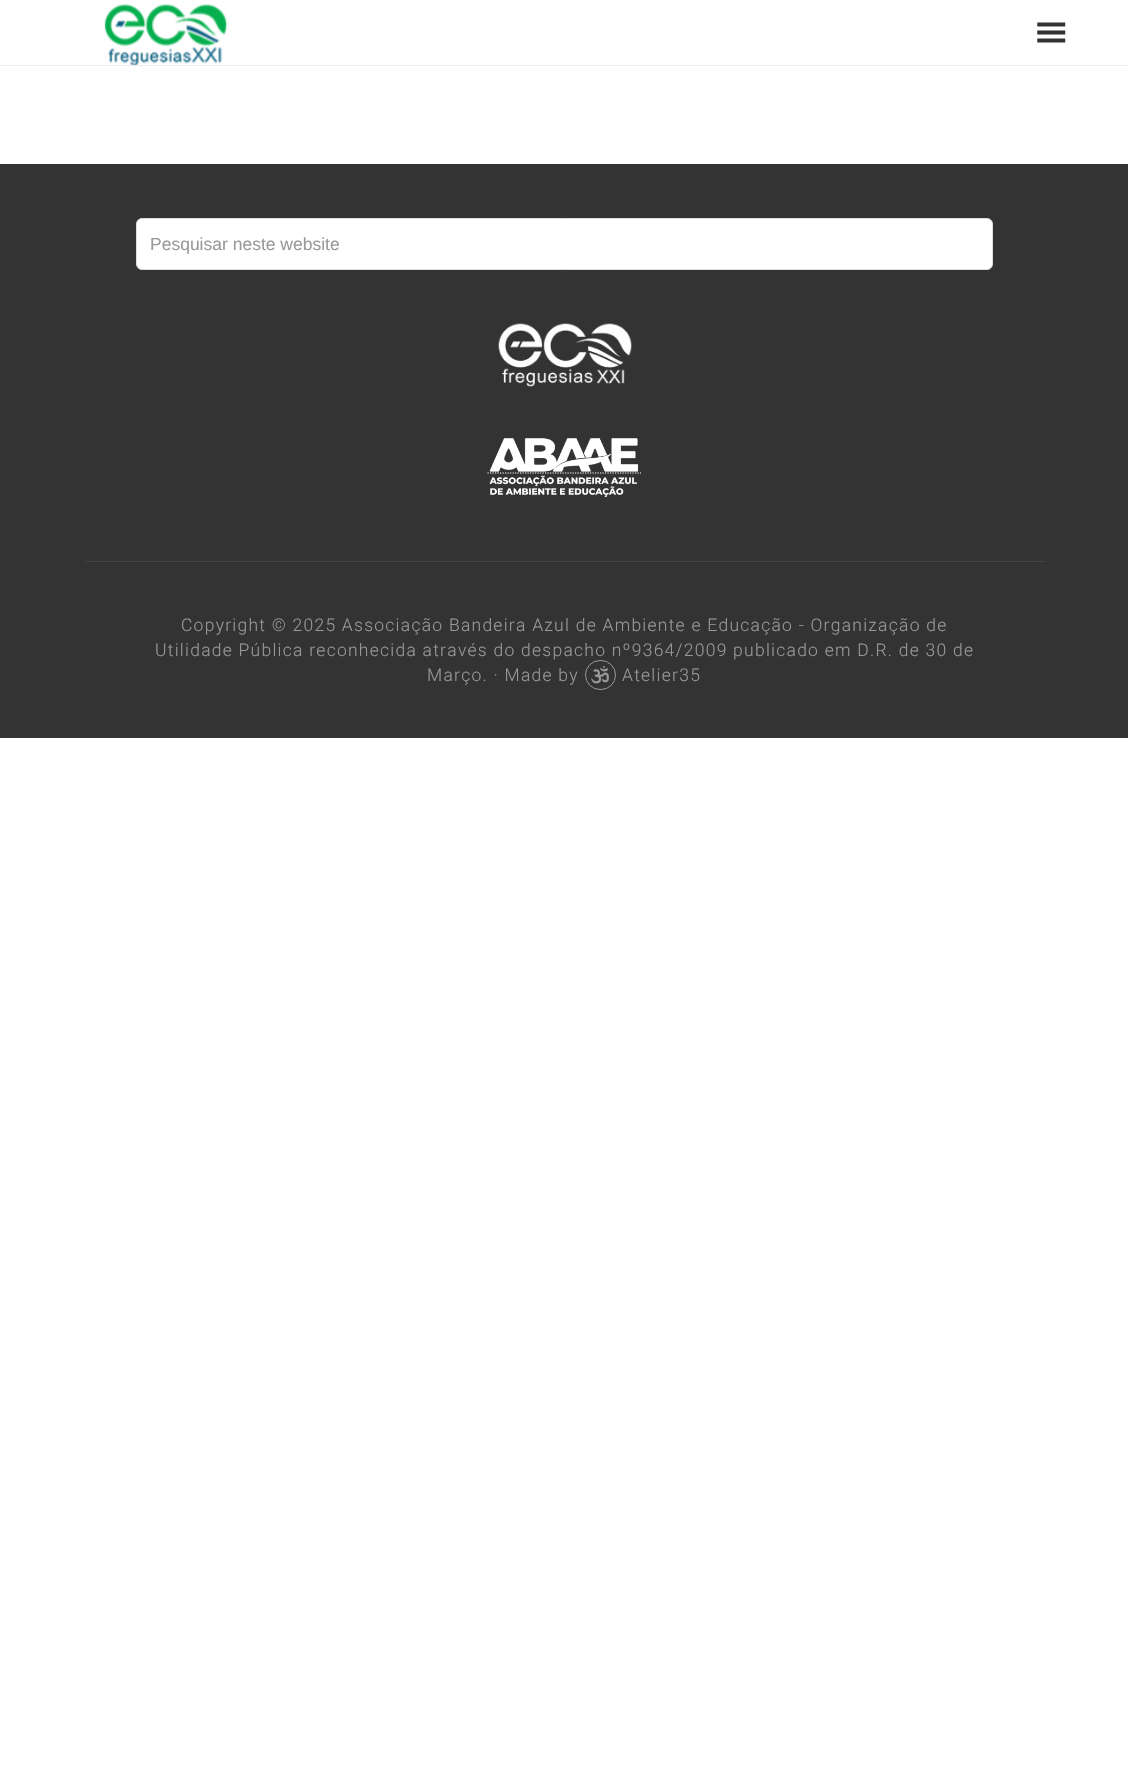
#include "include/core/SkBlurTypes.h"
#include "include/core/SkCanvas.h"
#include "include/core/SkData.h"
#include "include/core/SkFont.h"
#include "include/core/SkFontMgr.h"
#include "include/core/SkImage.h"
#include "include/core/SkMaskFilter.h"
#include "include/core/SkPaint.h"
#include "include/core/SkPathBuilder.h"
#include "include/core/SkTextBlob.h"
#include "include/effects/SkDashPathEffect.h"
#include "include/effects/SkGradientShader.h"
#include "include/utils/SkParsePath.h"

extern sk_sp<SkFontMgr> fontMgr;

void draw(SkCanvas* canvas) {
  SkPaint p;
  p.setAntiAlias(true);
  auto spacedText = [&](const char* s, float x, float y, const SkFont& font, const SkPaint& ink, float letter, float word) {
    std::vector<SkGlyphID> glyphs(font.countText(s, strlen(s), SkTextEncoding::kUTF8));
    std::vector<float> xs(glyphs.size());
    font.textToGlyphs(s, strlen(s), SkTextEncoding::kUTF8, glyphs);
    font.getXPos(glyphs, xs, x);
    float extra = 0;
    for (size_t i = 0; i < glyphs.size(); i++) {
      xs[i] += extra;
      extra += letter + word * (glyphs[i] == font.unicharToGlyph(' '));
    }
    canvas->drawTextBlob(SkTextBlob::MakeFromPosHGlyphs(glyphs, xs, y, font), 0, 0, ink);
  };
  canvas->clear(SK_ColorWHITE);
  p.setColor(SkColorSetRGB(238, 238, 238));
  canvas->drawRect(SkRect::MakeLTRB(0, 65, 1128, 66), p);
  canvas->drawImageRect(SkImages::DeferredFromEncodedData(SkData::MakeFromFileName("images/1.png")), SkRect::MakeLTRB(104, 4, 228, 65), SkSamplingOptions());
  canvas->drawImageRect(SkImages::DeferredFromEncodedData(SkData::MakeFromFileName("images/2.png")), SkRect::MakeLTRB(1037, 22, 1066, 43), SkSamplingOptions());
  p.setColor(SkColorSetRGB(51, 51, 51));
  canvas->drawRect(SkRect::MakeLTRB(0, 164, 1128, 738), p);
  p.setColor(SkColorSetRGB(68, 68, 68));
  canvas->drawRect(SkRect::MakeLTRB(85, 561, 1045, 562), p);
  p.setColor(SK_ColorWHITE);
  canvas->drawRoundRect(SkRect::MakeLTRB(136.5f, 218.5f, 992.5f, 269.5f), 5.5f, 5.5f, p);
  p.setStyle(SkPaint::kStroke_Style);
  p.setStrokeWidth(1);
  p.setColor(SkColorSetRGB(221, 221, 221));
  canvas->drawRoundRect(SkRect::MakeLTRB(136.5f, 218.5f, 992.5f, 269.5f), 5.5f, 5.5f, p);
  canvas->drawImageRect(SkImages::DeferredFromEncodedData(SkData::MakeFromFileName("images/3.png")), SkRect::MakeLTRB(498, 323, 632, 387), SkSamplingOptions());
  p.setStrokeWidth(1.2f);
  p.setColor(SK_ColorWHITE);
  p.setPathEffect(SkDashPathEffect::Make({{1.25f, 1.25f}}, 0));
  canvas->drawPath(SkPathBuilder().moveTo(487.5f, 473).lineTo(641, 473).detach(), p);
  p.setPathEffect(nullptr);
  canvas->drawImageRect(SkImages::DeferredFromEncodedData(SkData::MakeFromFileName("images/4.png")), SkRect::MakeLTRB(489, 438, 639, 497), SkSamplingOptions());
  p.setStrokeWidth(1);
  p.setColor(SkColorSetRGB(153, 153, 153));
  canvas->drawRoundRect(SkRect::MakeLTRB(585.5f, 660.5f, 615.5f, 689.5f), 14.5f, 14.5f, p);
  canvas->drawImageRect(SkImages::DeferredFromEncodedData(SkData::MakeFromFileName("images/5.png")), SkRect::MakeLTRB(591, 666, 609, 684), SkSamplingOptions());
  SkFont font1(fontMgr->matchFamilyStyle("Liberation Sans", SkFontStyle::Normal()), 17.5f);
  font1.setSubpixel(true);
  p.setStyle(SkPaint::kFill_Style);
  canvas->drawString("Pesquisar neste website", 150, 250, font1, p);
  SkFont font2(fontMgr->matchFamilyStyle("Roboto", SkFontStyle(300, SkFontStyle::kNormal_Width, SkFontStyle::kUpright_Slant)), 17.5f);
  font2.setSubpixel(true);
  spacedText("Copyright © 2025 Associação Bandeira Azul de Ambiente e Educação - Organização de", 181, 631, font2, p, 1.25f, 0);
  spacedText("Utilidade Pública reconhecida através do despacho nº9364/2009 publicado em D.R. de 30 de", 155, 656, font2, p, 1.25f, 0);
  spacedText("Março. · Made by", 427, 681, font2, p, 1.25f, 0);
  spacedText("Atelier35", 622, 681, font2, p, 1.25f, 0);
}
